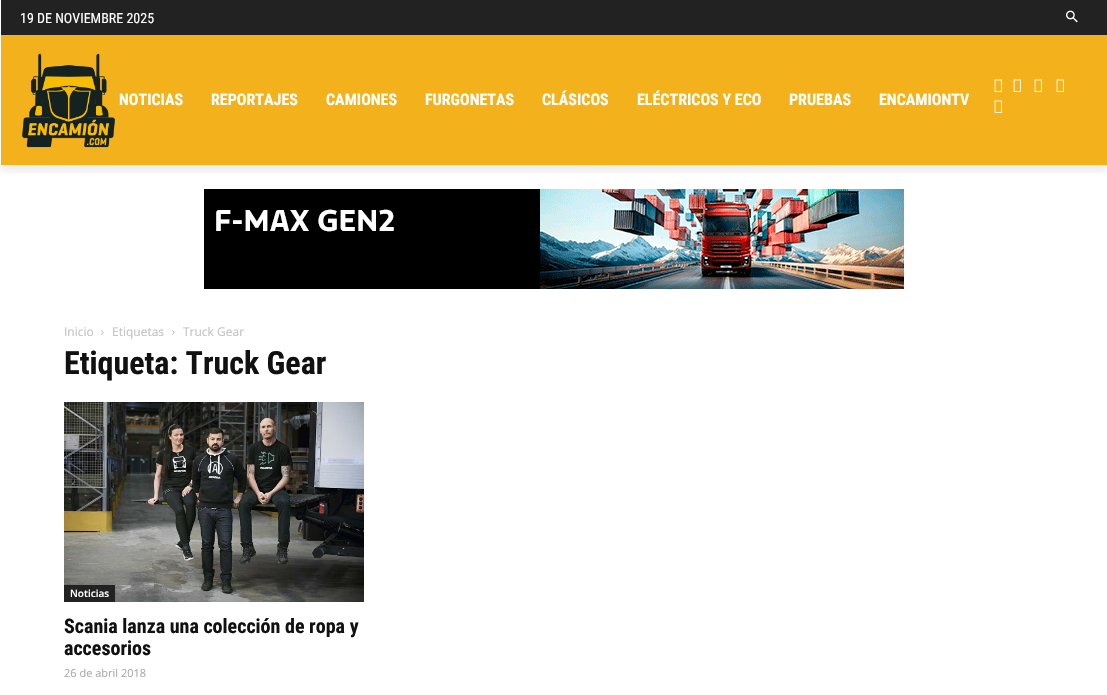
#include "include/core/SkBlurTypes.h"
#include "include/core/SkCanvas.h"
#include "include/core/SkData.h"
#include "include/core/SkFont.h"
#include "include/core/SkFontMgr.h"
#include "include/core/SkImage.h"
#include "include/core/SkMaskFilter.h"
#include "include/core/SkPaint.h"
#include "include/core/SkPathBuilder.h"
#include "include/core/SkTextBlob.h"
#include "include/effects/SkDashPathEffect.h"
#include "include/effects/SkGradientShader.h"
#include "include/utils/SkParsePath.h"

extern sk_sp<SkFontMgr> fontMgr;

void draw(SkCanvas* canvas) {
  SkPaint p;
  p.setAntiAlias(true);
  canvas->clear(SK_ColorWHITE);
  p.setColor(SkColorSetRGB(34, 34, 34));
  canvas->drawRect(SkRect::MakeLTRB(1, 0, 1107, 35), p);
  canvas->drawImageRect(SkImages::DeferredFromEncodedData(SkData::MakeFromFileName("images/1.png")), SkRect::MakeLTRB(1066, 10, 1078, 23), SkSamplingOptions());
  p.setColor(SkColorSetRGB(243, 177, 27));
  canvas->drawRect(SkRect::MakeLTRB(1, 35, 1107, 165), p);
  canvas->drawImageRect(SkImages::DeferredFromEncodedData(SkData::MakeFromFileName("images/2.png")), SkRect::MakeLTRB(22, 53, 115, 148), SkSamplingOptions());
  canvas->drawImageRect(SkImages::DeferredFromEncodedData(SkData::MakeFromFileName("images/3.png")), SkRect::MakeLTRB(994, 79, 1002, 92), SkSamplingOptions());
  canvas->drawImageRect(SkImages::DeferredFromEncodedData(SkData::MakeFromFileName("images/3.png")), SkRect::MakeLTRB(1013, 79, 1021, 92), SkSamplingOptions());
  canvas->drawImageRect(SkImages::DeferredFromEncodedData(SkData::MakeFromFileName("images/3.png")), SkRect::MakeLTRB(1034, 79, 1042, 92), SkSamplingOptions());
  canvas->drawImageRect(SkImages::DeferredFromEncodedData(SkData::MakeFromFileName("images/3.png")), SkRect::MakeLTRB(1056, 79, 1064, 92), SkSamplingOptions());
  canvas->drawImageRect(SkImages::DeferredFromEncodedData(SkData::MakeFromFileName("images/3.png")), SkRect::MakeLTRB(994, 100, 1002, 113), SkSamplingOptions());
  canvas->save();
  canvas->clipRect(SkRect::MakeLTRB(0, 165, 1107, 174));
  p.setColor(SkColorSetARGB(20, 0, 0, 0));
  p.setMaskFilter(SkMaskFilter::MakeBlur(kNormal_SkBlurStyle, 4));
  canvas->drawRect(SkRect::MakeLTRB(1, 41, 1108, 171), p);
  p.setMaskFilter(nullptr);
  canvas->restore();
  canvas->drawImageRect(SkImages::DeferredFromEncodedData(SkData::MakeFromFileName("images/4.png")), SkRect::MakeLTRB(204, 189, 904, 289), SkSamplingOptions());
  canvas->drawImageRect(SkImages::DeferredFromEncodedData(SkData::MakeFromFileName("images/5.png")), SkRect::MakeLTRB(101, 330, 104, 335), SkSamplingOptions());
  canvas->drawImageRect(SkImages::DeferredFromEncodedData(SkData::MakeFromFileName("images/5.png")), SkRect::MakeLTRB(172, 330, 175, 335), SkSamplingOptions());
  canvas->drawImageRect(SkImages::DeferredFromEncodedData(SkData::MakeFromFileName("images/6.png")), SkRect::MakeLTRB(64, 402, 364, 602), SkSamplingOptions());
  p.setColor(SkColorSetRGB(34, 34, 34));
  canvas->drawRect(SkRect::MakeLTRB(64, 585, 115, 602), p);
  SkFont font1(fontMgr->matchFamilyStyle("Roboto Condensed", SkFontStyle::Normal()), 14);
  font1.setSubpixel(true);
  p.setColor(SK_ColorWHITE);
  canvas->drawString("19 DE NOVIEMBRE 2025", 20, 23, font1, p);
  SkFont font2(fontMgr->matchFamilyStyle("Roboto Condensed", SkFontStyle::Bold()), 16);
  font2.setSubpixel(true);
  canvas->drawString("NOTICIAS", 119, 105, font2, p);
  canvas->drawString("REPORTAJES", 211, 105, font2, p);
  canvas->drawString("CAMIONES", 326, 105, font2, p);
  canvas->drawString("FURGONETAS", 425, 105, font2, p);
  canvas->drawString("CLÁSICOS", 542, 105, font2, p);
  canvas->drawString("ELÉCTRICOS Y ECO", 637, 105, font2, p);
  canvas->drawString("PRUEBAS", 789, 105, font2, p);
  canvas->drawString("ENCAMIONTV", 879, 105, font2, p);
  SkFont font3(fontMgr->matchFamilyStyle("Open Sans", SkFontStyle::Normal()), 12);
  font3.setSubpixel(true);
  p.setColor(SkColorSetRGB(195, 195, 195));
  canvas->drawString("Inicio", 64, 336, font3, p);
  canvas->drawString("Etiquetas", 112, 336, font3, p);
  canvas->drawString("Truck Gear", 183, 336, font3, p);
  SkFont font4(fontMgr->matchFamilyStyle("Roboto Condensed", SkFontStyle::Bold()), 32);
  font4.setSubpixel(true);
  p.setColor(SkColorSetRGB(17, 17, 17));
  canvas->drawString("Etiqueta: Truck Gear", 64, 374, font4, p);
  SkFont font5(fontMgr->matchFamilyStyle("Open Sans", SkFontStyle(600, SkFontStyle::kNormal_Width, SkFontStyle::kUpright_Slant)), 10);
  font5.setSubpixel(true);
  p.setColor(SK_ColorWHITE);
  canvas->drawString("Noticias", 70, 597, font5, p);
  SkFont font6(fontMgr->matchFamilyStyle("Roboto Condensed", SkFontStyle::Bold()), 20);
  font6.setSubpixel(true);
  p.setColor(SkColorSetRGB(17, 17, 17));
  canvas->drawString("Scania lanza una colección de ropa y", 64, 633, font6, p);
  canvas->drawString("accesorios", 64, 655, font6, p);
  SkFont font7(fontMgr->matchFamilyStyle("Open Sans", SkFontStyle::Normal()), 11);
  font7.setSubpixel(true);
  p.setColor(SkColorSetRGB(170, 170, 170));
  canvas->drawString("26 de abril 2018", 64, 677, font7, p);
}
